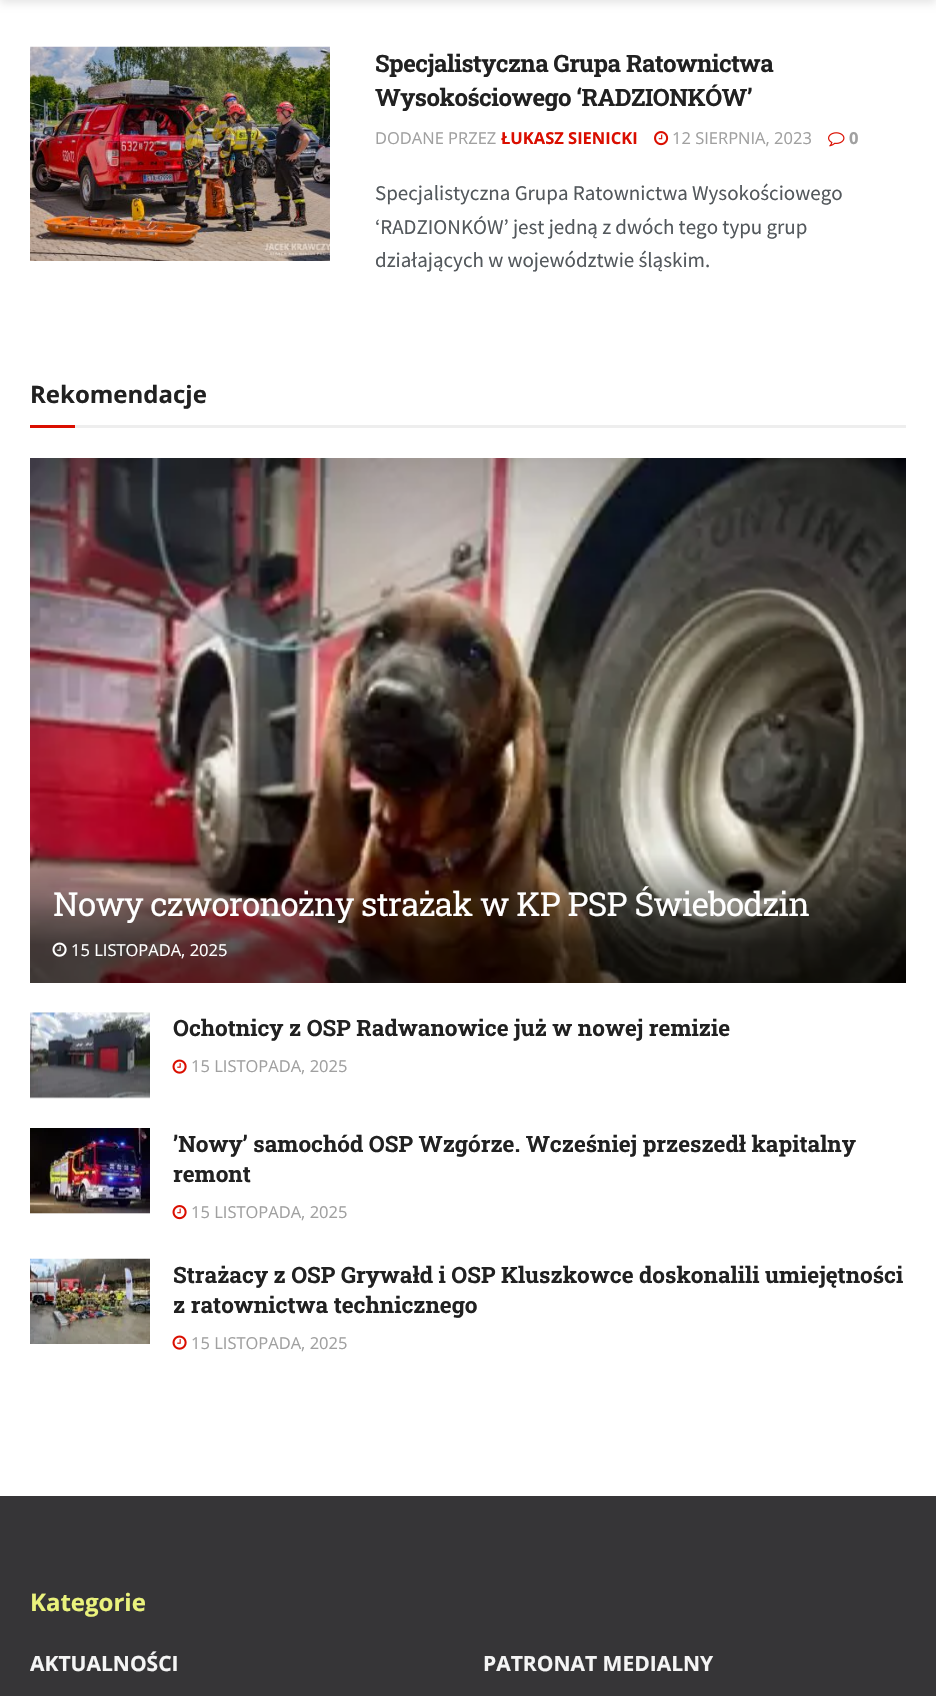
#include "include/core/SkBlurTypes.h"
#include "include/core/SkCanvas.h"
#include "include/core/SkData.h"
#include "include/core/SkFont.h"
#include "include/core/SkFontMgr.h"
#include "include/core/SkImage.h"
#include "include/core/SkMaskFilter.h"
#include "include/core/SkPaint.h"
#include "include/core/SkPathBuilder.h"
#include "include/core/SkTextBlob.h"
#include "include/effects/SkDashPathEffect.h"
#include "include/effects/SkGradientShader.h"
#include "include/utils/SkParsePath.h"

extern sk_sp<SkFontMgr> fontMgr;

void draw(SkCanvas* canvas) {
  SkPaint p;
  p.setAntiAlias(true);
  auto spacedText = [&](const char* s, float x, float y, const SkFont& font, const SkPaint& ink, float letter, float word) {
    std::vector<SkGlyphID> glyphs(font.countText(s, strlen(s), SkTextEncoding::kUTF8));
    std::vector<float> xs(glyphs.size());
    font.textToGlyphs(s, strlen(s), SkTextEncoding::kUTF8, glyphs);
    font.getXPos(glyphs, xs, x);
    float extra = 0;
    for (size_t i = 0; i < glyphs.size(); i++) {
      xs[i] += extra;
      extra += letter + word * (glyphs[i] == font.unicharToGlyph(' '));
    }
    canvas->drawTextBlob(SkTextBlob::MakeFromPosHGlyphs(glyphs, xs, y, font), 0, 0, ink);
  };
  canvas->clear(SkColorSetRGB(54, 53, 55));
  p.setColor(SK_ColorWHITE);
  canvas->drawRect(SkRect::MakeLTRB(0, 0, 936, 1496), p);
  p.setColor(SkColorSetARGB(26, 0, 0, 0));
  p.setMaskFilter(SkMaskFilter::MakeBlur(kNormal_SkBlurStyle, 4.5f));
  canvas->drawRect(SkRect::MakeLTRB(0, -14, 936, 3), p);
  p.setMaskFilter(nullptr);
  canvas->drawImageRect(SkImages::DeferredFromEncodedData(SkData::MakeFromFileName("images/1.png")), SkRect::MakeLTRB(30, 46, 330, 261), SkSamplingOptions());
  canvas->drawImageRect(SkImages::DeferredFromEncodedData(SkData::MakeFromFileName("images/2.png")), SkRect::MakeLTRB(654, 131, 669, 146), SkSamplingOptions());
  canvas->drawImageRect(SkImages::DeferredFromEncodedData(SkData::MakeFromFileName("images/3.png")), SkRect::MakeLTRB(828, 132, 845, 147), SkSamplingOptions());
  p.setColor(SkColorSetRGB(238, 238, 238));
  canvas->drawRect(SkRect::MakeLTRB(75, 425, 906, 428), p);
  p.setColor(SkColorSetRGB(218, 14, 0));
  canvas->drawRect(SkRect::MakeLTRB(30, 425, 75, 428), p);
  canvas->drawImageRect(SkImages::DeferredFromEncodedData(SkData::MakeFromFileName("images/4.png")), SkRect::MakeLTRB(30, 458, 906, 983), SkSamplingOptions());
  canvas->drawImageRect(SkImages::DeferredFromEncodedData(SkData::MakeFromFileName("images/5.png")), SkRect::MakeLTRB(52, 942, 67, 957), SkSamplingOptions());
  p.setColor(SkColorSetRGB(247, 247, 247));
  canvas->drawRect(SkRect::MakeLTRB(30, 1097, 150, 1098), p);
  p.setColor(SkColorSetRGB(251, 251, 251));
  canvas->drawRect(SkRect::MakeLTRB(30, 1012, 149, 1013), p);
  canvas->drawImageRect(SkImages::DeferredFromEncodedData(SkData::MakeFromFileName("images/6.png")), SkRect::MakeLTRB(30, 1012, 150, 1099), SkSamplingOptions());
  canvas->drawImageRect(SkImages::DeferredFromEncodedData(SkData::MakeFromFileName("images/7.png")), SkRect::MakeLTRB(172, 1059, 187, 1074), SkSamplingOptions());
  p.setColor(SkColorSetRGB(247, 247, 247));
  canvas->drawRect(SkRect::MakeLTRB(30, 1213, 150, 1214), p);
  canvas->drawImageRect(SkImages::DeferredFromEncodedData(SkData::MakeFromFileName("images/8.png")), SkRect::MakeLTRB(30, 1128, 150, 1214), SkSamplingOptions());
  canvas->drawImageRect(SkImages::DeferredFromEncodedData(SkData::MakeFromFileName("images/9.png")), SkRect::MakeLTRB(172, 1205, 187, 1220), SkSamplingOptions());
  canvas->drawImageRect(SkImages::DeferredFromEncodedData(SkData::MakeFromFileName("images/10.png")), SkRect::MakeLTRB(30, 1258, 150, 1344), SkSamplingOptions());
  canvas->drawImageRect(SkImages::DeferredFromEncodedData(SkData::MakeFromFileName("images/7.png")), SkRect::MakeLTRB(172, 1335, 187, 1350), SkSamplingOptions());
  SkFont font1(fontMgr->matchFamilyStyle("Roboto Slab", SkFontStyle::Bold()), 24);
  font1.setSubpixel(true);
  p.setColor(SkColorSetRGB(33, 33, 33));
  spacedText("Specjalistyczna Grupa Ratownictwa", 375, 72, font1, p, -0.5f, 0);
  spacedText("Wysokościowego ‘RADZIONKÓW’", 375, 106, font1, p, -0.5f, 0);
  SkFont font2(fontMgr->matchFamilyStyle("Open Sans", SkFontStyle::Normal()), 16.5f);
  font2.setSubpixel(true);
  p.setColor(SkColorSetRGB(160, 160, 160));
  canvas->drawString("DODANE PRZEZ", 375, 144, font2, p);
  SkFont font3(fontMgr->matchFamilyStyle("Open Sans", SkFontStyle::Bold()), 16.5f);
  font3.setSubpixel(true);
  p.setColor(SkColorSetRGB(218, 14, 0));
  canvas->drawString("ŁUKASZ SIENICKI", 501, 144, font3, p);
  p.setColor(SkColorSetRGB(160, 160, 160));
  canvas->drawString("12 SIERPNIA, 2023", 672, 144, font2, p);
  canvas->drawString("0", 849, 144, font3, p);
  SkFont font4(fontMgr->matchFamilyStyle("Source Sans Pro", SkFontStyle::Normal()), 21);
  font4.setSubpixel(true);
  p.setColor(SkColorSetRGB(83, 88, 92));
  canvas->drawString("Specjalistyczna Grupa Ratownictwa Wysokościowego", 375, 200, font4, p);
  canvas->drawString("‘RADZIONKÓW’ jest jedną z dwóch tego typu grup", 375, 234, font4, p);
  canvas->drawString("działających w województwie śląskim.", 375, 267, font4, p);
  SkFont font5(fontMgr->matchFamilyStyle("Open Sans", SkFontStyle::Bold()), 24);
  font5.setSubpixel(true);
  p.setColor(SkColorSetRGB(33, 33, 33));
  canvas->drawString("Rekomendacje", 30, 403, font5, p);
  SkFont font6(fontMgr->matchFamilyStyle("Roboto Slab", SkFontStyle::Normal()), 33);
  font6.setSubpixel(true);
  p.setColor(SK_ColorWHITE);
  spacedText("Nowy czworonożny strażak w KP PSP Świebodzin", 53, 916, font6, p, -0.65f, 0);
  canvas->drawString("15 LISTOPADA, 2025", 71, 956, font2, p);
  SkFont font7(fontMgr->matchFamilyStyle("Roboto Slab", SkFontStyle::Bold()), 22.5f);
  font7.setSubpixel(true);
  p.setColor(SkColorSetRGB(33, 33, 33));
  canvas->drawString("Ochotnicy z OSP Radwanowice już w nowej remizie", 173, 1036, font7, p);
  p.setColor(SkColorSetRGB(160, 160, 160));
  canvas->drawString("15 LISTOPADA, 2025", 191, 1072, font2, p);
  p.setColor(SkColorSetRGB(33, 33, 33));
  canvas->drawString("’Nowy’ samochód OSP Wzgórze. Wcześniej przeszedł kapitalny", 173, 1152, font7, p);
  canvas->drawString("remont", 173, 1182, font7, p);
  p.setColor(SkColorSetRGB(160, 160, 160));
  canvas->drawString("15 LISTOPADA, 2025", 191, 1218, font2, p);
  p.setColor(SkColorSetRGB(33, 33, 33));
  canvas->drawString("Strażacy z OSP Grywałd i OSP Kluszkowce doskonalili umiejętności", 173, 1283, font7, p);
  canvas->drawString("z ratownictwa technicznego", 173, 1313, font7, p);
  p.setColor(SkColorSetRGB(160, 160, 160));
  canvas->drawString("15 LISTOPADA, 2025", 191, 1349, font2, p);
  p.setColor(SkColorSetRGB(234, 242, 124));
  canvas->drawString("Kategorie", 30, 1611, font5, p);
  SkFont font8(fontMgr->matchFamilyStyle("Open Sans", SkFontStyle::Bold()), 21);
  font8.setSubpixel(true);
  p.setColor(SkColorSetRGB(245, 245, 245));
  canvas->drawString("AKTUALNOŚCI", 30, 1671, font8, p);
  canvas->drawString("PATRONAT MEDIALNY", 483, 1671, font8, p);
}
